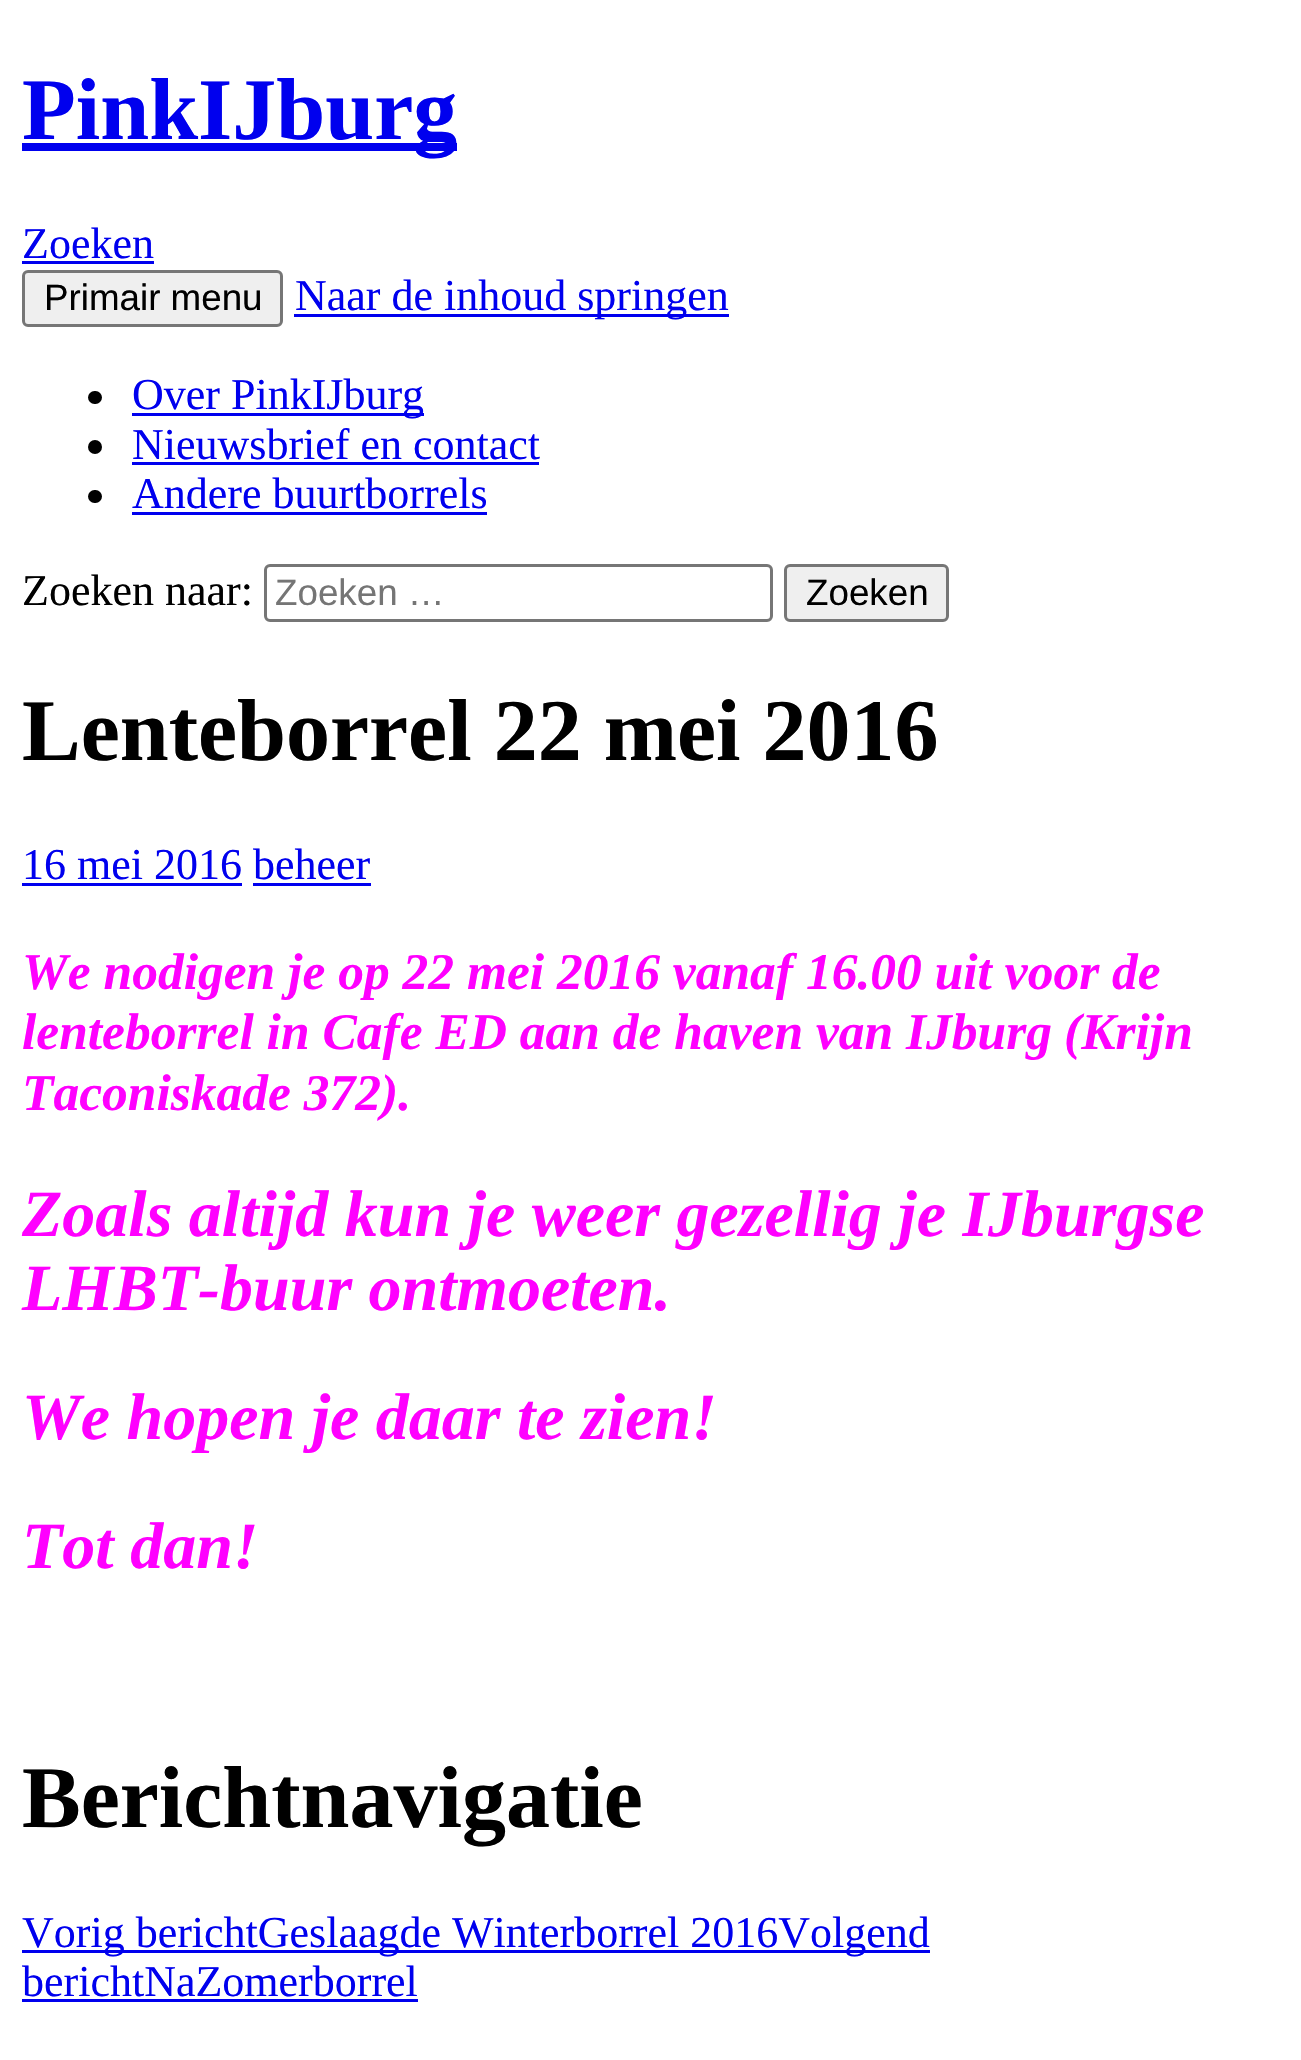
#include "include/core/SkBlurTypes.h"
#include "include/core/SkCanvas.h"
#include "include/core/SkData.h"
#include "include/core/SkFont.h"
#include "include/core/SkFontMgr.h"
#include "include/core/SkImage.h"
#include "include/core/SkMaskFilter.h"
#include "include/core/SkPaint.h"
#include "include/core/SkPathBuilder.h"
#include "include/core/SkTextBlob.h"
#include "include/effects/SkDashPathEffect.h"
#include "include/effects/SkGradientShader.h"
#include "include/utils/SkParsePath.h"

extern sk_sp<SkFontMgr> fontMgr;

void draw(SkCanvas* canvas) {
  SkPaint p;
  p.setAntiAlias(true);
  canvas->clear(SK_ColorWHITE);
  p.setColor(SkColorSetRGB(0, 0, 238));
  canvas->drawRect(SkRect::MakeLTRB(22, 143, 457, 151), p);
  canvas->drawRect(SkRect::MakeLTRB(22, 261, 154, 264), p);
  p.setColor(SkColorSetRGB(239, 239, 239));
  canvas->drawRoundRect(SkRect::MakeLTRB(23.5f, 271.5f, 281.5f, 325.5f), 4.5f, 4.5f, p);
  p.setStyle(SkPaint::kStroke_Style);
  p.setStrokeWidth(3);
  p.setColor(SkColorSetRGB(118, 118, 118));
  canvas->drawRoundRect(SkRect::MakeLTRB(23.5f, 271.5f, 281.5f, 325.5f), 4.5f, 4.5f, p);
  p.setStyle(SkPaint::kFill_Style);
  p.setColor(SkColorSetRGB(0, 0, 238));
  canvas->drawRect(SkRect::MakeLTRB(294, 314, 729, 317), p);
  p.setColor(SK_ColorBLACK);
  canvas->drawRoundRect(SkRect::MakeLTRB(88, 391, 102, 404), 6.5f, 6.5f, p);
  p.setColor(SkColorSetRGB(0, 0, 238));
  canvas->drawRect(SkRect::MakeLTRB(132, 413, 424, 416), p);
  p.setColor(SK_ColorBLACK);
  canvas->drawCircle(95, 447, 7, p);
  p.setColor(SkColorSetRGB(0, 0, 238));
  canvas->drawRect(SkRect::MakeLTRB(132, 462, 539, 465), p);
  p.setColor(SK_ColorBLACK);
  canvas->drawRoundRect(SkRect::MakeLTRB(88, 490, 102, 503), 6.5f, 6.5f, p);
  p.setColor(SkColorSetRGB(0, 0, 238));
  canvas->drawRect(SkRect::MakeLTRB(132, 512, 487, 515), p);
  p.setStyle(SkPaint::kStroke_Style);
  p.setColor(SkColorSetRGB(118, 118, 118));
  canvas->drawRoundRect(SkRect::MakeLTRB(265.5f, 565.5f, 771.5f, 620.5f), 4.5f, 4.5f, p);
  p.setStyle(SkPaint::kFill_Style);
  p.setColor(SkColorSetRGB(239, 239, 239));
  canvas->drawRoundRect(SkRect::MakeLTRB(785.5f, 565.5f, 947.5f, 620.5f), 4.5f, 4.5f, p);
  p.setStyle(SkPaint::kStroke_Style);
  p.setColor(SkColorSetRGB(118, 118, 118));
  canvas->drawRoundRect(SkRect::MakeLTRB(785.5f, 565.5f, 947.5f, 620.5f), 4.5f, 4.5f, p);
  p.setStyle(SkPaint::kFill_Style);
  p.setColor(SkColorSetRGB(0, 0, 238));
  canvas->drawRect(SkRect::MakeLTRB(22, 883, 242, 886), p);
  canvas->drawRect(SkRect::MakeLTRB(253, 883, 371, 886), p);
  canvas->drawRect(SkRect::MakeLTRB(22, 1950, 930, 1953), p);
  canvas->drawRect(SkRect::MakeLTRB(22, 1999, 418, 2002), p);
  SkFont font1(fontMgr->matchFamilyStyle("Liberation Serif", SkFontStyle::Bold()), 88);
  font1.setSubpixel(true);
  canvas->drawString("PinkIJburg", 22, 139, font1, p);
  SkFont font2(fontMgr->matchFamilyStyle("Liberation Serif", SkFontStyle::Normal()), 44);
  font2.setSubpixel(true);
  canvas->drawString("Zoeken", 22, 258, font2, p);
  SkFont font3(fontMgr->matchFamilyStyle("Liberation Sans", SkFontStyle::Normal()), 36.75f);
  font3.setSubpixel(true);
  p.setColor(SK_ColorBLACK);
  canvas->drawString("Primair menu", 44, 310, font3, p);
  p.setColor(SkColorSetRGB(0, 0, 238));
  canvas->drawString("Naar de inhoud springen", 295, 310, font2, p);
  canvas->drawString("Over PinkIJburg", 132, 409, font2, p);
  canvas->drawString("Nieuwsbrief en contact", 132, 459, font2, p);
  canvas->drawString("Andere buurtborrels", 132, 508, font2, p);
  p.setColor(SK_ColorBLACK);
  canvas->drawString("Zoeken naar:", 22, 605, font2, p);
  p.setColor(SkColorSetRGB(117, 117, 117));
  canvas->drawString("Zoeken …", 275, 605, font3, p);
  p.setColor(SK_ColorBLACK);
  canvas->drawString("Zoeken", 806, 605, font3, p);
  canvas->drawString("Lenteborrel 22 mei 2016", 22, 760, font1, p);
  p.setColor(SkColorSetRGB(0, 0, 238));
  canvas->drawString("16 mei 2016 beheer", 22, 879, font2, p);
  SkFont font4(fontMgr->matchFamilyStyle("Liberation Serif", SkFontStyle::BoldItalic()), 51.5f);
  font4.setSubpixel(true);
  p.setColor(SkColorSetRGB(255, 0, 255));
  canvas->drawString("We nodigen je op 22 mei 2016 vanaf 16.00 uit voor de", 22, 989, font4, p);
  canvas->drawString("lenteborrel in Cafe ED aan de haven van IJburg", 22, 1049, font4, p);
  canvas->drawString("(Krijn", 1064, 1049, font4, p);
  canvas->drawString("Taconiskade 372).", 22, 1110, font4, p);
  SkFont font5(fontMgr->matchFamilyStyle("Liberation Serif", SkFontStyle::BoldItalic()), 66);
  font5.setSubpixel(true);
  canvas->drawString("Zoals altijd kun je weer gezellig je IJburgse", 22, 1236, font5, p);
  canvas->drawString("LHBT-buur ontmoeten.", 22, 1310, font5, p);
  canvas->drawString("We hopen je daar te zien!", 22, 1439, font5, p);
  canvas->drawString("Tot dan!", 22, 1568, font5, p);
  p.setColor(SK_ColorBLACK);
  canvas->drawString("Berichtnavigatie", 22, 1827, font1, p);
  p.setColor(SkColorSetRGB(0, 0, 238));
  canvas->drawString("Vorig berichtGeslaagde Winterborrel 2016Volgend", 22, 1947, font2, p);
  canvas->drawString("berichtNaZomerborrel", 22, 1996, font2, p);
}
